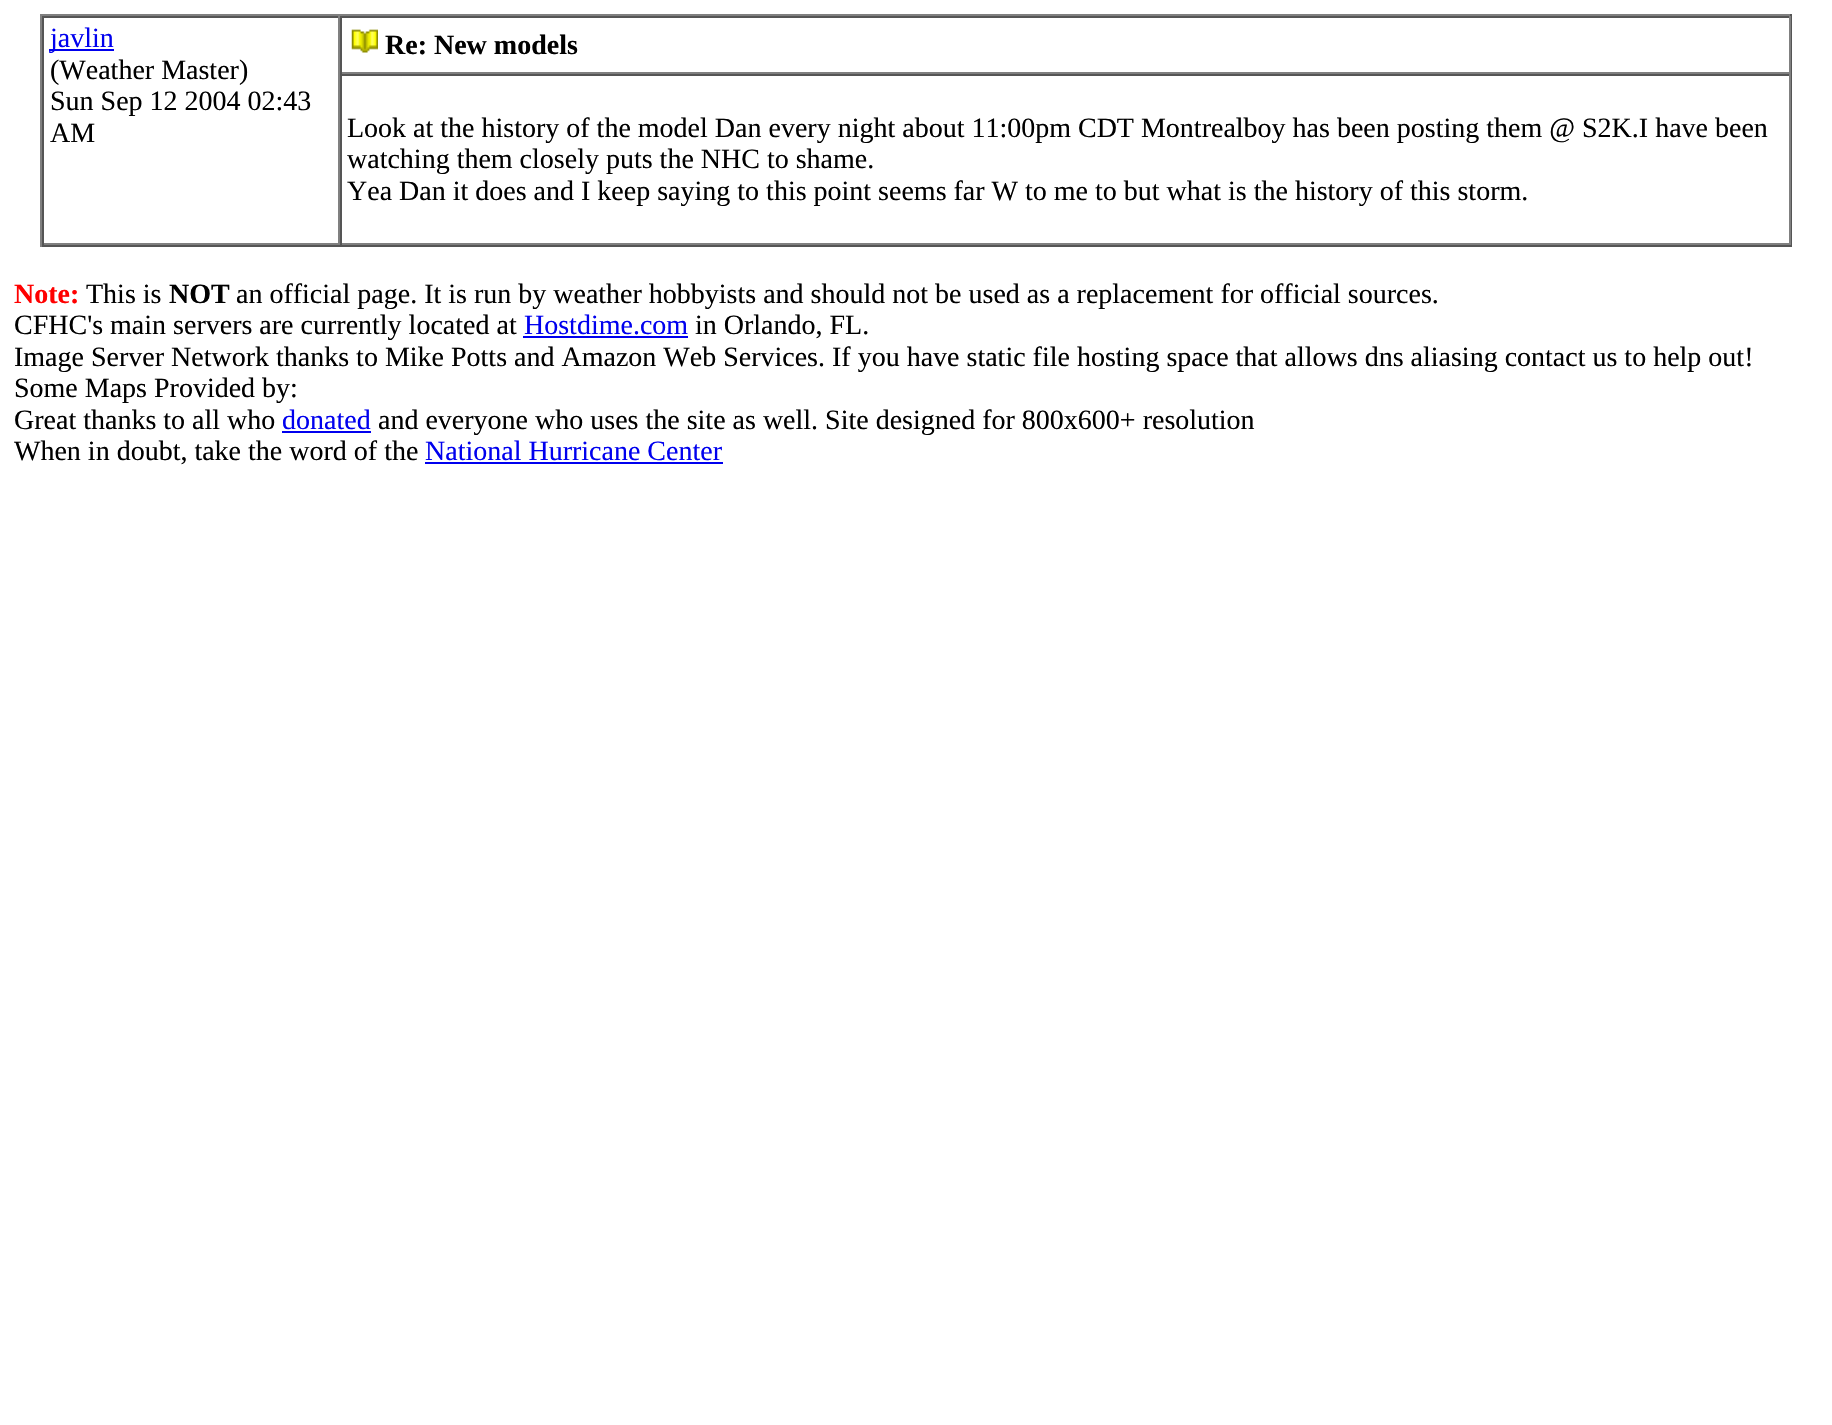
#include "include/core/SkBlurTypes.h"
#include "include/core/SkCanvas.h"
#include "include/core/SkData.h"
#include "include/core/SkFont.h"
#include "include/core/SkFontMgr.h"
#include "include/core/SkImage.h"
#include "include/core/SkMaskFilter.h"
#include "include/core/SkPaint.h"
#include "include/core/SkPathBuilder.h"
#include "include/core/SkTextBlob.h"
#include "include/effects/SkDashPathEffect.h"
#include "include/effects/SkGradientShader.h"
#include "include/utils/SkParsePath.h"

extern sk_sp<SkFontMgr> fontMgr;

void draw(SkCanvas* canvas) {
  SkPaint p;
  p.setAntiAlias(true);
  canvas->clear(SK_ColorWHITE);
  p.setColor(SkColorSetRGB(128, 128, 128));
  canvas->drawRect(SkRect::MakeLTRB(40, 14, 1792, 16), p);
  p.setColor(SkColorSetRGB(85, 85, 85));
  canvas->drawRect(SkRect::MakeLTRB(1790, 14, 1792, 247), p);
  canvas->drawRect(SkRect::MakeLTRB(40, 245, 1792, 247), p);
  p.setColor(SkColorSetRGB(128, 128, 128));
  canvas->drawRect(SkRect::MakeLTRB(40, 14, 42, 247), p);
  p.setColor(SkColorSetRGB(85, 85, 85));
  canvas->drawRect(SkRect::MakeLTRB(42, 16, 1790, 18), p);
  p.setColor(SkColorSetRGB(128, 128, 128));
  canvas->drawRect(SkRect::MakeLTRB(338, 16, 340, 245), p);
  canvas->drawRect(SkRect::MakeLTRB(42, 243, 340, 245), p);
  p.setColor(SkColorSetRGB(85, 85, 85));
  canvas->drawRect(SkRect::MakeLTRB(42, 16, 44, 245), p);
  p.setColor(SkColorSetRGB(0, 0, 238));
  canvas->drawRect(SkRect::MakeLTRB(49, 49, 114, 51), p);
  p.setColor(SkColorSetRGB(128, 128, 128));
  canvas->drawRect(SkRect::MakeLTRB(1789, 16, 1791, 74), p);
  canvas->drawRect(SkRect::MakeLTRB(340, 72, 1790, 74), p);
  p.setColor(SkColorSetRGB(85, 85, 85));
  canvas->drawRect(SkRect::MakeLTRB(340, 16, 342, 74), p);
  canvas->drawImageRect(SkImages::DeferredFromEncodedData(SkData::MakeFromFileName("images/1.png")), SkRect::MakeLTRB(351, 29, 378, 53), SkSamplingOptions());
  canvas->drawRect(SkRect::MakeLTRB(340, 74, 1790, 76), p);
  p.setColor(SkColorSetRGB(128, 128, 128));
  canvas->drawRect(SkRect::MakeLTRB(1789, 74, 1791, 245), p);
  canvas->drawRect(SkRect::MakeLTRB(340, 243, 1790, 245), p);
  p.setColor(SkColorSetRGB(85, 85, 85));
  canvas->drawRect(SkRect::MakeLTRB(340, 74, 342, 245), p);
  p.setColor(SkColorSetRGB(0, 0, 238));
  canvas->drawRect(SkRect::MakeLTRB(523, 336, 688, 338), p);
  canvas->drawRect(SkRect::MakeLTRB(282, 431, 371, 433), p);
  canvas->drawRect(SkRect::MakeLTRB(425, 462, 723, 464), p);
  SkFont font1(fontMgr->matchFamilyStyle("Liberation Serif", SkFontStyle::Normal()), 28);
  font1.setSubpixel(true);
  canvas->drawString("javlin", 50, 47, font1, p);
  p.setColor(SK_ColorBLACK);
  canvas->drawString("(Weather Master)", 50, 79, font1, p);
  canvas->drawString("Sun Sep 12 2004 02:43", 50, 110, font1, p);
  canvas->drawString("AM", 50, 142, font1, p);
  SkFont font2(fontMgr->matchFamilyStyle("Liberation Serif", SkFontStyle::Bold()), 28);
  font2.setSubpixel(true);
  canvas->drawString("Re: New models", 385, 54, font2, p);
  canvas->drawString("Look at the history of the model Dan every night about 11:00pm CDT Montrealboy has been posting them @ S2K.I have been", 347, 137, font1, p);
  canvas->drawString("watching them closely puts the NHC to shame.", 347, 168, font1, p);
  canvas->drawString("Yea Dan it does and I keep saying to this point seems far W to me to but what is the history of this storm.", 347, 200, font1, p);
  p.setColor(SkColorSetRGB(255, 0, 0));
  canvas->drawString("Note:", 14, 303, font2, p);
  p.setColor(SK_ColorBLACK);
  canvas->drawString("This is", 86, 303, font1, p);
  canvas->drawString("NOT", 169, 303, font2, p);
  canvas->drawString("an official page. It is run by weather hobbyists and should not be used as a replacement for official sources.", 236, 303, font1, p);
  canvas->drawString("CFHC's main servers are currently located at", 14, 334, font1, p);
  p.setColor(SkColorSetRGB(0, 0, 238));
  canvas->drawString("Hostdime.com", 524, 334, font1, p);
  p.setColor(SK_ColorBLACK);
  canvas->drawString("in Orlando, FL.", 695, 334, font1, p);
  canvas->drawString("Image Server Network thanks to Mike Potts and Amazon Web Services. If you have static file hosting space that allows dns aliasing contact us to help out!", 14, 366, font1, p);
  canvas->drawString("Some Maps Provided by:", 14, 397, font1, p);
  canvas->drawString("Great thanks to all who", 14, 429, font1, p);
  p.setColor(SkColorSetRGB(0, 0, 238));
  canvas->drawString("donated", 282, 429, font1, p);
  p.setColor(SK_ColorBLACK);
  canvas->drawString("and everyone who uses the site as well. Site designed for 800x600+ resolution", 378, 429, font1, p);
  canvas->drawString("When in doubt, take the word of the", 14, 460, font1, p);
  p.setColor(SkColorSetRGB(0, 0, 238));
  canvas->drawString("National Hurricane Center", 425, 460, font1, p);
}
